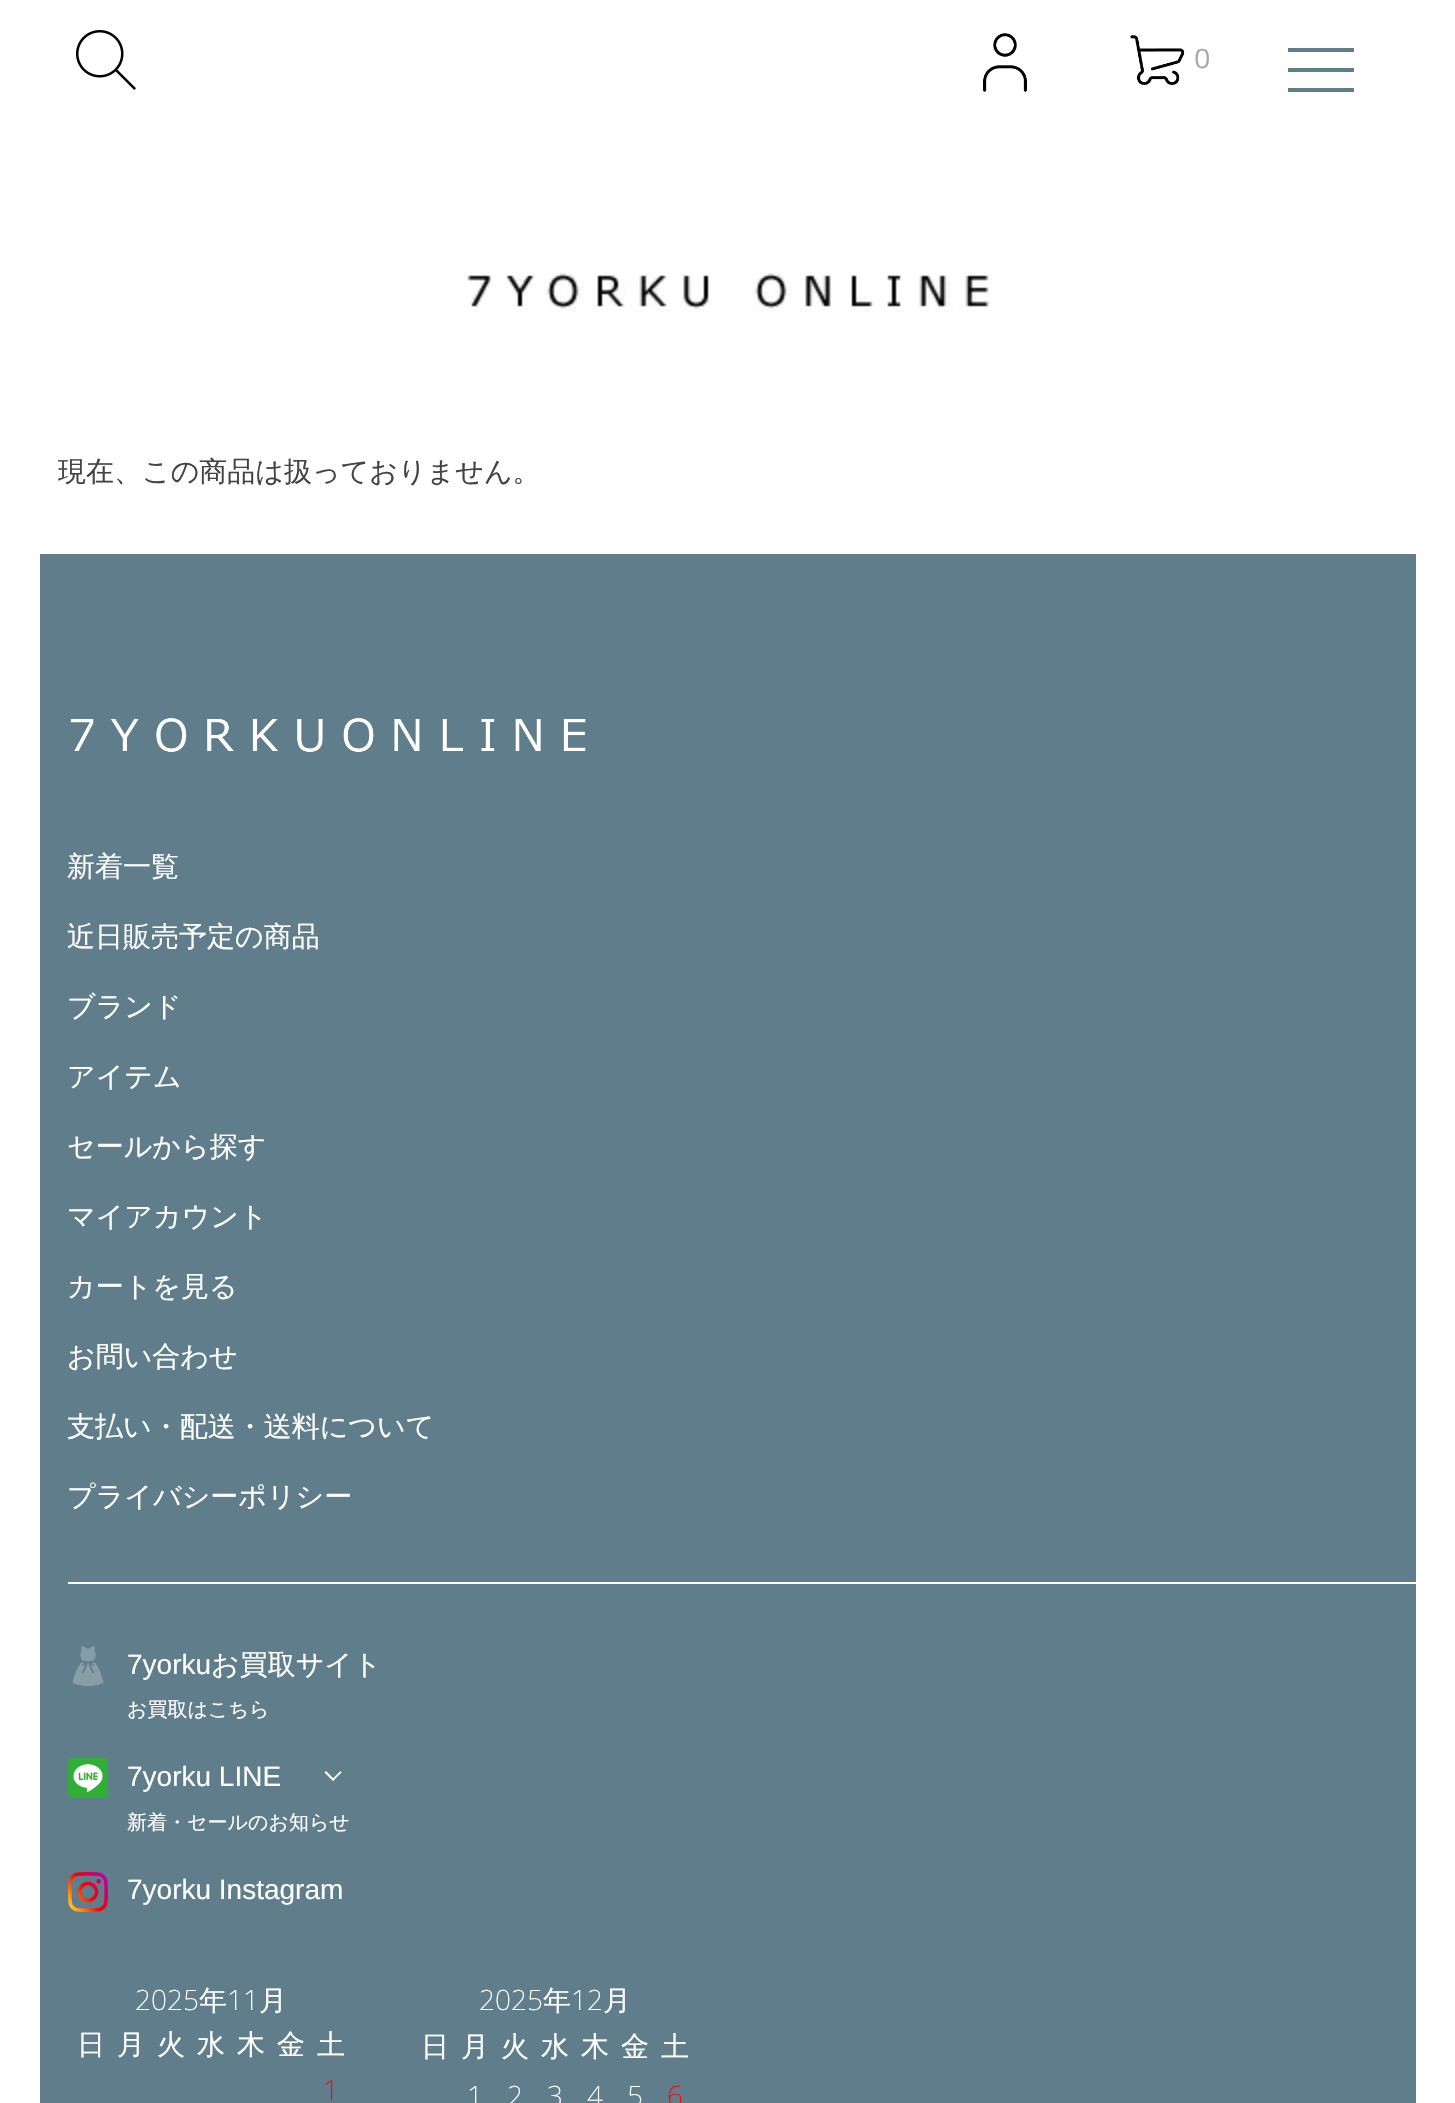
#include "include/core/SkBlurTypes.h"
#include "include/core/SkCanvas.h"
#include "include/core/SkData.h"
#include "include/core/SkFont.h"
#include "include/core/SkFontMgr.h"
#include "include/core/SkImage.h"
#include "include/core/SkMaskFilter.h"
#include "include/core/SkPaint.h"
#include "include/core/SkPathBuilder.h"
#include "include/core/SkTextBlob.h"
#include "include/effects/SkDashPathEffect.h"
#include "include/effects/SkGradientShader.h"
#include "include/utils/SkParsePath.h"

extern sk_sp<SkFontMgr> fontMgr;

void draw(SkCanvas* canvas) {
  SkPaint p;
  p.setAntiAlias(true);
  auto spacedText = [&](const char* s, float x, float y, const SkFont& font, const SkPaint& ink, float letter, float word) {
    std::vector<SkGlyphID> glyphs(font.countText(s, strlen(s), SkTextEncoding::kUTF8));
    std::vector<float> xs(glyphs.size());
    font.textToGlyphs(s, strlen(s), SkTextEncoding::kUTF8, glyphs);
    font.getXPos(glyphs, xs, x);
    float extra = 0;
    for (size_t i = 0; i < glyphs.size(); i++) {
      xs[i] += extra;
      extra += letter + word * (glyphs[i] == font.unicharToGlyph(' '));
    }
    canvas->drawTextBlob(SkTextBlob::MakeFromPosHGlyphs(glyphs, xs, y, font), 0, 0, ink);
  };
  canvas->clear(SK_ColorWHITE);
  canvas->drawImageRect(SkImages::DeferredFromEncodedData(SkData::MakeFromFileName("images/1.png")), SkRect::MakeLTRB(76, 30, 136, 90), SkSamplingOptions());
  canvas->drawImageRect(SkImages::DeferredFromEncodedData(SkData::MakeFromFileName("images/2.png")), SkRect::MakeLTRB(983, 33, 1027, 92), SkSamplingOptions());
  canvas->drawImageRect(SkImages::DeferredFromEncodedData(SkData::MakeFromFileName("images/3.png")), SkRect::MakeLTRB(1130, 35, 1185, 85), SkSamplingOptions());
  p.setColor(SkColorSetRGB(96, 125, 139));
  canvas->drawRect(SkRect::MakeLTRB(1288, 48, 1354, 52), p);
  canvas->drawRect(SkRect::MakeLTRB(1288, 68, 1354, 72), p);
  canvas->drawRect(SkRect::MakeLTRB(1288, 88, 1354, 92), p);
  canvas->drawImageRect(SkImages::DeferredFromEncodedData(SkData::MakeFromFileName("images/4.png")), SkRect::MakeLTRB(464, 272, 992, 312), SkSamplingOptions());
  canvas->drawRect(SkRect::MakeLTRB(40, 554, 1416, 2103), p);
  canvas->drawImageRect(SkImages::DeferredFromEncodedData(SkData::MakeFromFileName("images/5.png")), SkRect::MakeLTRB(70, 718, 586, 752), SkSamplingOptions());
  p.setColor(SK_ColorWHITE);
  canvas->drawRect(SkRect::MakeLTRB(68, 1582, 1416, 1584), p);
  canvas->drawImageRect(SkImages::DeferredFromEncodedData(SkData::MakeFromFileName("images/6.png")), SkRect::MakeLTRB(72, 1646, 104, 1686), SkSamplingOptions());
  canvas->drawImageRect(SkImages::DeferredFromEncodedData(SkData::MakeFromFileName("images/7.png")), SkRect::MakeLTRB(68, 1758, 108, 1798), SkSamplingOptions());
  canvas->drawPath(SkPathBuilder().moveTo(340.5f, 1771).lineTo(341.5f, 1772.5f).lineTo(333, 1781).lineTo(332, 1779.5f).close().detach(), p);
  canvas->drawPath(SkPathBuilder().moveTo(326, 1771).lineTo(334.5f, 1779.5f).lineTo(333, 1781).lineTo(324.5f, 1772.5f).close().detach(), p);
  canvas->drawImageRect(SkImages::DeferredFromEncodedData(SkData::MakeFromFileName("images/8.png")), SkRect::MakeLTRB(68, 1872, 108, 1912), SkSamplingOptions());
  SkFont font1(fontMgr->matchFamilyStyle("Sintony", SkFontStyle::Normal()), 26);
  font1.setSubpixel(true);
  p.setColor(SkColorSetRGB(170, 170, 170));
  spacedText("0", 1194, 68, font1, p, 1, 0);
  SkFont font2(fontMgr->matchFamilyStyle("WenQuanYi Zen Hei", SkFontStyle(500, SkFontStyle::kNormal_Width, SkFontStyle::kUpright_Slant)), 28);
  font2.setSubpixel(true);
  p.setColor(SkColorSetRGB(68, 68, 68));
  canvas->drawString("現在、この商品は扱っておりません。", 58, 481, font2, p);
  p.setColor(SK_ColorWHITE);
  canvas->drawString("新着一覧", 67, 876, font2, p);
  canvas->drawString("近日販売予定の商品", 67, 946, font2, p);
  canvas->drawString("ブランド", 67, 1016, font2, p);
  canvas->drawString("アイテム", 67, 1086, font2, p);
  canvas->drawString("セールから探す", 67, 1156, font2, p);
  canvas->drawString("マイアカウント", 67, 1226, font2, p);
  canvas->drawString("カートを見る", 67, 1296, font2, p);
  canvas->drawString("お問い合わせ", 67, 1366, font2, p);
  canvas->drawString("支払い・配送・送料について", 67, 1436, font2, p);
  canvas->drawString("プライバシーポリシー", 67, 1506, font2, p);
  SkFont font3(fontMgr->matchFamilyStyle("Liberation Sans", SkFontStyle::Normal()), 28);
  font3.setSubpixel(true);
  canvas->drawString("7yorku", 127, 1674, font3, p);
  canvas->drawString("お買取サイト", 211, 1674, font2, p);
  SkFont font4(fontMgr->matchFamilyStyle("WenQuanYi Zen Hei", SkFontStyle(500, SkFontStyle::kNormal_Width, SkFontStyle::kUpright_Slant)), 20);
  font4.setSubpixel(true);
  canvas->drawString("お買取はこちら", 127, 1716, font4, p);
  canvas->drawString("7yorku LINE", 127, 1786, font3, p);
  canvas->drawString("新着・セールのお知らせ", 127, 1829, font4, p);
  canvas->drawString("7yorku Instagram", 127, 1899, font3, p);
  SkFont font5(fontMgr->matchFamilyStyle("Noto Sans", SkFontStyle(200, SkFontStyle::kNormal_Width, SkFontStyle::kUpright_Slant)), 28);
  font5.setSubpixel(true);
  canvas->drawString("2025", 135, 2010, font5, p);
  canvas->drawString("年", 199, 2010, font2, p);
  canvas->drawString("11", 227, 2010, font5, p);
  canvas->drawString("月", 259, 2010, font2, p);
  canvas->drawString("日", 77, 2054, font2, p);
  canvas->drawString("月", 117, 2054, font2, p);
  canvas->drawString("火", 157, 2054, font2, p);
  canvas->drawString("水", 197, 2054, font2, p);
  canvas->drawString("木", 237, 2054, font2, p);
  canvas->drawString("金", 277, 2054, font2, p);
  canvas->drawString("土", 317, 2054, font2, p);
  p.setColor(SkColorSetRGB(255, 3, 3));
  canvas->drawString("1", 323, 2100, font5, p);
  p.setColor(SK_ColorWHITE);
  canvas->drawString("2025", 479, 2010, font5, p);
  canvas->drawString("年", 543, 2010, font2, p);
  canvas->drawString("12", 571, 2010, font5, p);
  canvas->drawString("月", 603, 2010, font2, p);
  canvas->drawString("日", 421, 2056, font2, p);
  canvas->drawString("月", 461, 2056, font2, p);
  canvas->drawString("火", 501, 2056, font2, p);
  canvas->drawString("水", 541, 2056, font2, p);
  canvas->drawString("木", 581, 2056, font2, p);
  canvas->drawString("金", 621, 2056, font2, p);
  canvas->drawString("土", 661, 2056, font2, p);
  canvas->drawString("1", 467, 2106, font5, p);
  canvas->drawString("2", 507, 2106, font5, p);
  canvas->drawString("3", 547, 2106, font5, p);
  canvas->drawString("4", 587, 2106, font5, p);
  canvas->drawString("5", 627, 2106, font5, p);
  p.setColor(SkColorSetRGB(255, 3, 3));
  canvas->drawString("6", 667, 2106, font5, p);
}
